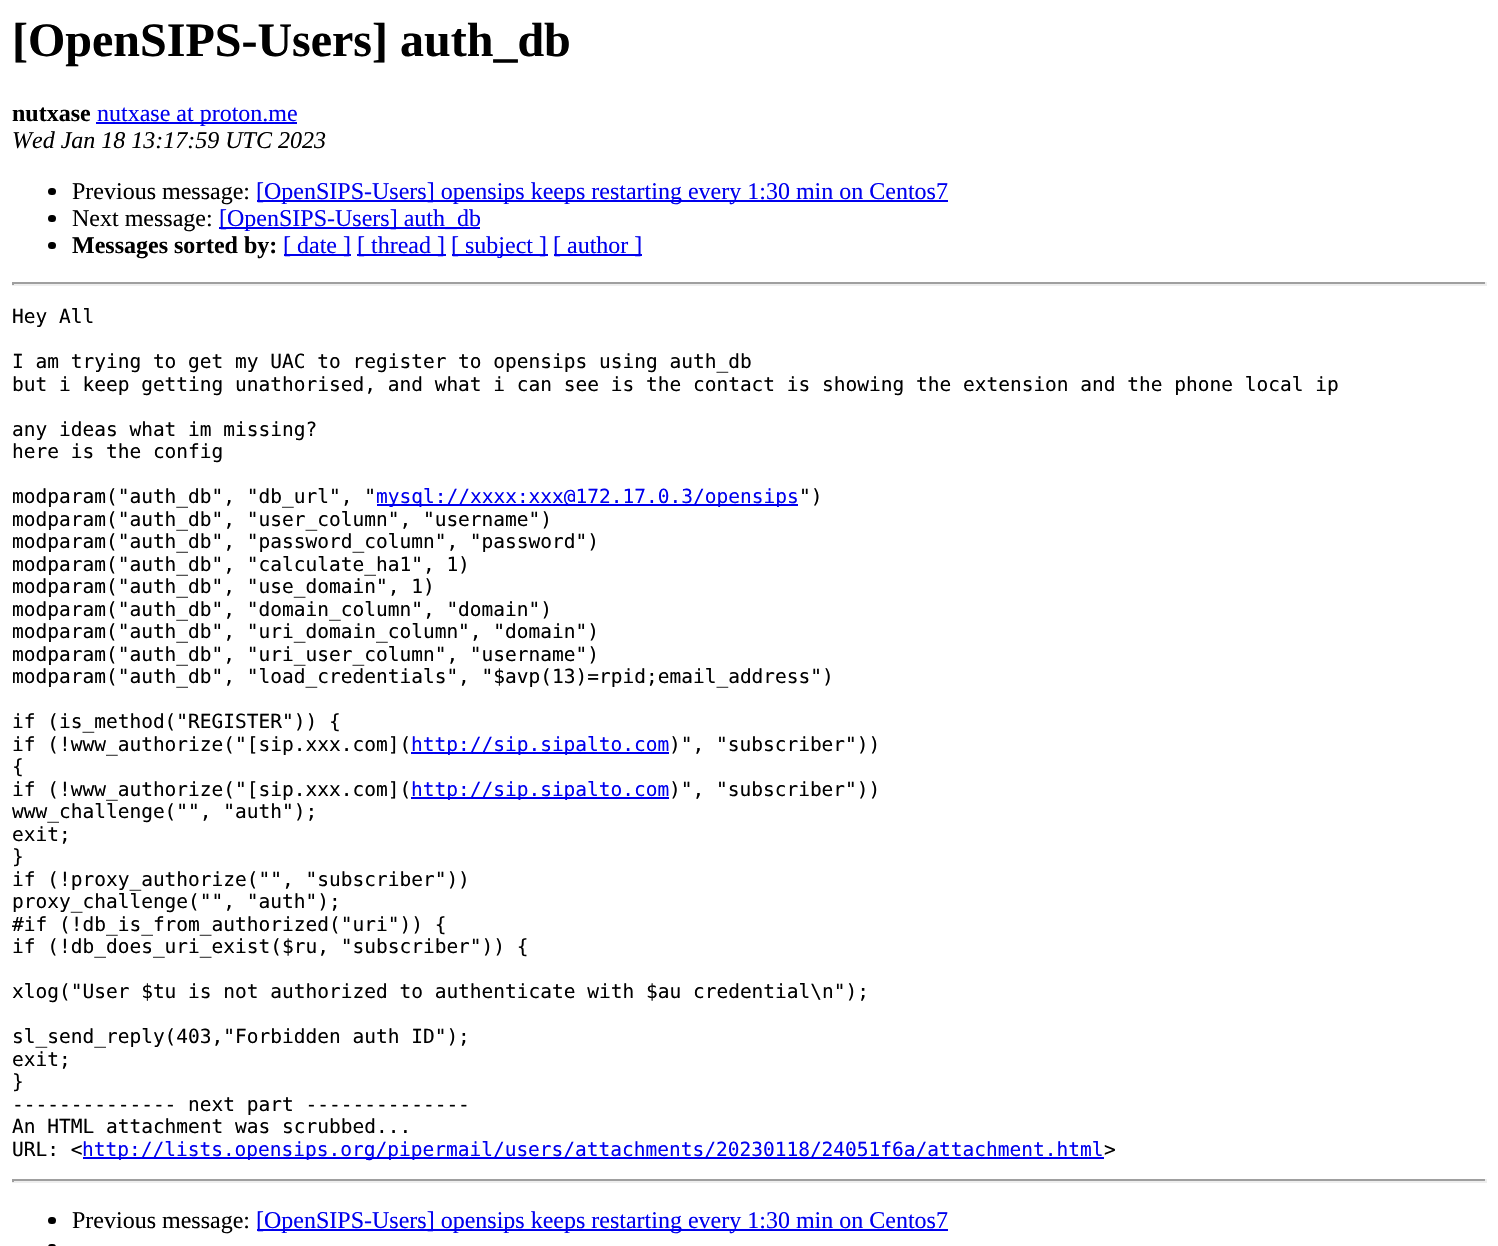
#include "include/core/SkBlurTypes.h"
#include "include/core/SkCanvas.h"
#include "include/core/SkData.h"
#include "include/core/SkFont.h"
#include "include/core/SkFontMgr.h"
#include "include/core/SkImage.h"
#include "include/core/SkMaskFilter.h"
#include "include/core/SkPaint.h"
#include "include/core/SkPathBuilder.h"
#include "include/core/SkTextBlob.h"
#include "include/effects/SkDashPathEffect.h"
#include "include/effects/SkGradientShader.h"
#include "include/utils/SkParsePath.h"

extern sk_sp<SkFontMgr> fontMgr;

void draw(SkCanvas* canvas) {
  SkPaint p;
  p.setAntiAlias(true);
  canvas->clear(SK_ColorWHITE);
  p.setColor(SkColorSetRGB(0, 0, 238));
  canvas->drawRect(SkRect::MakeLTRB(96, 122, 297, 124), p);
  p.setColor(SK_ColorBLACK);
  canvas->drawRoundRect(SkRect::MakeLTRB(48, 188, 56, 195), 3.5f, 3.5f, p);
  p.setColor(SkColorSetRGB(0, 0, 238));
  canvas->drawRect(SkRect::MakeLTRB(257, 200, 948, 202), p);
  p.setColor(SK_ColorBLACK);
  canvas->drawRoundRect(SkRect::MakeLTRB(48, 215, 56, 222), 3.5f, 3.5f, p);
  p.setColor(SkColorSetRGB(0, 0, 238));
  canvas->drawRect(SkRect::MakeLTRB(219, 227, 480, 229), p);
  p.setColor(SK_ColorBLACK);
  canvas->drawRoundRect(SkRect::MakeLTRB(48, 242, 56, 249), 3.5f, 3.5f, p);
  p.setColor(SkColorSetRGB(0, 0, 238));
  canvas->drawRect(SkRect::MakeLTRB(284, 254, 351, 256), p);
  canvas->drawRect(SkRect::MakeLTRB(357, 254, 446, 256), p);
  canvas->drawRect(SkRect::MakeLTRB(452, 254, 548, 256), p);
  canvas->drawRect(SkRect::MakeLTRB(554, 254, 642, 256), p);
  p.setColor(SkColorSetRGB(159, 159, 159));
  canvas->drawRect(SkRect::MakeLTRB(12, 282, 1487, 284), p);
  p.setColor(SkColorSetRGB(238, 238, 238));
  canvas->drawRect(SkRect::MakeLTRB(1485, 282, 1487, 285), p);
  canvas->drawRect(SkRect::MakeLTRB(12, 284, 1487, 286), p);
  p.setColor(SkColorSetRGB(159, 159, 159));
  canvas->drawRect(SkRect::MakeLTRB(12, 282, 14, 285), p);
  p.setColor(SkColorSetRGB(0, 0, 238));
  canvas->drawRect(SkRect::MakeLTRB(377, 504, 798, 506), p);
  canvas->drawRect(SkRect::MakeLTRB(411, 752, 669, 754), p);
  canvas->drawRect(SkRect::MakeLTRB(411, 797, 669, 799), p);
  canvas->drawRect(SkRect::MakeLTRB(83, 1157, 1104, 1159), p);
  p.setColor(SkColorSetRGB(159, 159, 159));
  canvas->drawRect(SkRect::MakeLTRB(12, 1179, 1487, 1181), p);
  p.setColor(SkColorSetRGB(238, 238, 238));
  canvas->drawRect(SkRect::MakeLTRB(1485, 1179, 1487, 1182), p);
  canvas->drawRect(SkRect::MakeLTRB(12, 1181, 1487, 1183), p);
  p.setColor(SkColorSetRGB(159, 159, 159));
  canvas->drawRect(SkRect::MakeLTRB(12, 1179, 14, 1182), p);
  p.setColor(SK_ColorBLACK);
  canvas->drawRoundRect(SkRect::MakeLTRB(48, 1217, 56, 1224), 3.5f, 3.5f, p);
  p.setColor(SkColorSetRGB(0, 0, 238));
  canvas->drawRect(SkRect::MakeLTRB(257, 1229, 948, 1231), p);
  p.setColor(SK_ColorBLACK);
  canvas->drawRoundRect(SkRect::MakeLTRB(48, 1244, 56, 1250), 3.5f, 3.5f, p);
  SkFont font1(fontMgr->matchFamilyStyle("Liberation Serif", SkFontStyle::Bold()), 48);
  font1.setSubpixel(true);
  canvas->drawString("[OpenSIPS-Users] auth_db", 12, 56, font1, p);
  SkFont font2(fontMgr->matchFamilyStyle("Liberation Serif", SkFontStyle::Bold()), 24);
  font2.setSubpixel(true);
  canvas->drawString("nutxase", 12, 121, font2, p);
  SkFont font3(fontMgr->matchFamilyStyle("Liberation Serif", SkFontStyle::Normal()), 24);
  font3.setSubpixel(true);
  p.setColor(SkColorSetRGB(0, 0, 238));
  canvas->drawString("nutxase at proton.me", 97, 121, font3, p);
  SkFont font4(fontMgr->matchFamilyStyle("Liberation Serif", SkFontStyle::Italic()), 24);
  font4.setSubpixel(true);
  p.setColor(SK_ColorBLACK);
  canvas->drawString("Wed Jan 18 13:17:59 UTC 2023", 12, 148, font4, p);
  canvas->drawString("Previous message:", 72, 199, font3, p);
  p.setColor(SkColorSetRGB(0, 0, 238));
  canvas->drawString("[OpenSIPS-Users] opensips keeps restarting every 1:30 min on Centos7", 256, 199, font3, p);
  p.setColor(SK_ColorBLACK);
  canvas->drawString("Next message:", 72, 226, font3, p);
  p.setColor(SkColorSetRGB(0, 0, 238));
  canvas->drawString("[OpenSIPS-Users] auth_db", 219, 226, font3, p);
  p.setColor(SK_ColorBLACK);
  canvas->drawString("Messages sorted by:", 72, 253, font2, p);
  p.setColor(SkColorSetRGB(0, 0, 238));
  canvas->drawString("[ date ]", 283, 253, font3, p);
  canvas->drawString("[ thread ]", 357, 253, font3, p);
  canvas->drawString("[ subject ]", 451, 253, font3, p);
  canvas->drawString("[ author ]", 553, 253, font3, p);
  SkFont font5(fontMgr->matchFamilyStyle("DejaVu Sans Mono", SkFontStyle::Normal()), 19.5f);
  font5.setSubpixel(true);
  p.setColor(SK_ColorBLACK);
  canvas->drawString("Hey All", 12, 323, font5, p);
  canvas->drawString("I am trying to get my UAC to register to opensips using auth_db", 12, 368, font5, p);
  canvas->drawString("but i keep getting unathorised, and what i can see is the contact is showing the extension and the phone local ip", 12, 391, font5, p);
  canvas->drawString("any ideas what im missing?", 12, 436, font5, p);
  canvas->drawString("here is the config", 12, 458, font5, p);
  canvas->drawString("modparam(\"auth_db\", \"db_url\", \"", 12, 503, font5, p);
  p.setColor(SkColorSetRGB(0, 0, 238));
  canvas->drawString("mysql://xxxx:xxx@172.17.0.3/opensips", 376, 503, font5, p);
  p.setColor(SK_ColorBLACK);
  canvas->drawString("\")", 799, 503, font5, p);
  canvas->drawString("modparam(\"auth_db\", \"user_column\", \"username\")", 12, 526, font5, p);
  canvas->drawString("modparam(\"auth_db\", \"password_column\", \"password\")", 12, 548, font5, p);
  canvas->drawString("modparam(\"auth_db\", \"calculate_ha1\", 1)", 12, 571, font5, p);
  canvas->drawString("modparam(\"auth_db\", \"use_domain\", 1)", 12, 593, font5, p);
  canvas->drawString("modparam(\"auth_db\", \"domain_column\", \"domain\")", 12, 616, font5, p);
  canvas->drawString("modparam(\"auth_db\", \"uri_domain_column\", \"domain\")", 12, 638, font5, p);
  canvas->drawString("modparam(\"auth_db\", \"uri_user_column\", \"username\")", 12, 661, font5, p);
  canvas->drawString("modparam(\"auth_db\", \"load_credentials\", \"$avp(13)=rpid;email_address\")", 12, 683, font5, p);
  canvas->drawString("if (is_method(\"REGISTER\")) {", 12, 728, font5, p);
  canvas->drawString("if (!www_authorize(\"[sip.xxx.com](", 12, 751, font5, p);
  p.setColor(SkColorSetRGB(0, 0, 238));
  canvas->drawString("http://sip.sipalto.com", 411, 751, font5, p);
  p.setColor(SK_ColorBLACK);
  canvas->drawString(")\", \"subscriber\"))", 669, 751, font5, p);
  canvas->drawString("{", 12, 773, font5, p);
  canvas->drawString("if (!www_authorize(\"[sip.xxx.com](", 12, 796, font5, p);
  p.setColor(SkColorSetRGB(0, 0, 238));
  canvas->drawString("http://sip.sipalto.com", 411, 796, font5, p);
  p.setColor(SK_ColorBLACK);
  canvas->drawString(")\", \"subscriber\"))", 669, 796, font5, p);
  canvas->drawString("www_challenge(\"\", \"auth\");", 12, 818, font5, p);
  canvas->drawString("exit;", 12, 841, font5, p);
  canvas->drawString("}", 12, 863, font5, p);
  canvas->drawString("if (!proxy_authorize(\"\", \"subscriber\"))", 12, 886, font5, p);
  canvas->drawString("proxy_challenge(\"\", \"auth\");", 12, 908, font5, p);
  canvas->drawString("#if (!db_is_from_authorized(\"uri\")) {", 12, 931, font5, p);
  canvas->drawString("if (!db_does_uri_exist($ru, \"subscriber\")) {", 12, 953, font5, p);
  canvas->drawString("xlog(\"User $tu is not authorized to authenticate with $au credential\\n\");", 12, 998, font5, p);
  canvas->drawString("sl_send_reply(403,\"Forbidden auth ID\");", 12, 1043, font5, p);
  canvas->drawString("exit;", 12, 1066, font5, p);
  canvas->drawString("}", 12, 1088, font5, p);
  canvas->drawString("-------------- next part --------------", 12, 1111, font5, p);
  canvas->drawString("An HTML attachment was scrubbed...", 12, 1133, font5, p);
  canvas->drawString("URL: <", 12, 1156, font5, p);
  p.setColor(SkColorSetRGB(0, 0, 238));
  canvas->drawString("http://lists.opensips.org/pipermail/users/attachments/20230118/24051f6a/attachment.html", 82, 1156, font5, p);
  p.setColor(SK_ColorBLACK);
  canvas->drawString(">", 1104, 1156, font5, p);
  canvas->drawString("Previous message:", 72, 1228, font3, p);
  p.setColor(SkColorSetRGB(0, 0, 238));
  canvas->drawString("[OpenSIPS-Users] opensips keeps restarting every 1:30 min on Centos7", 256, 1228, font3, p);
}
